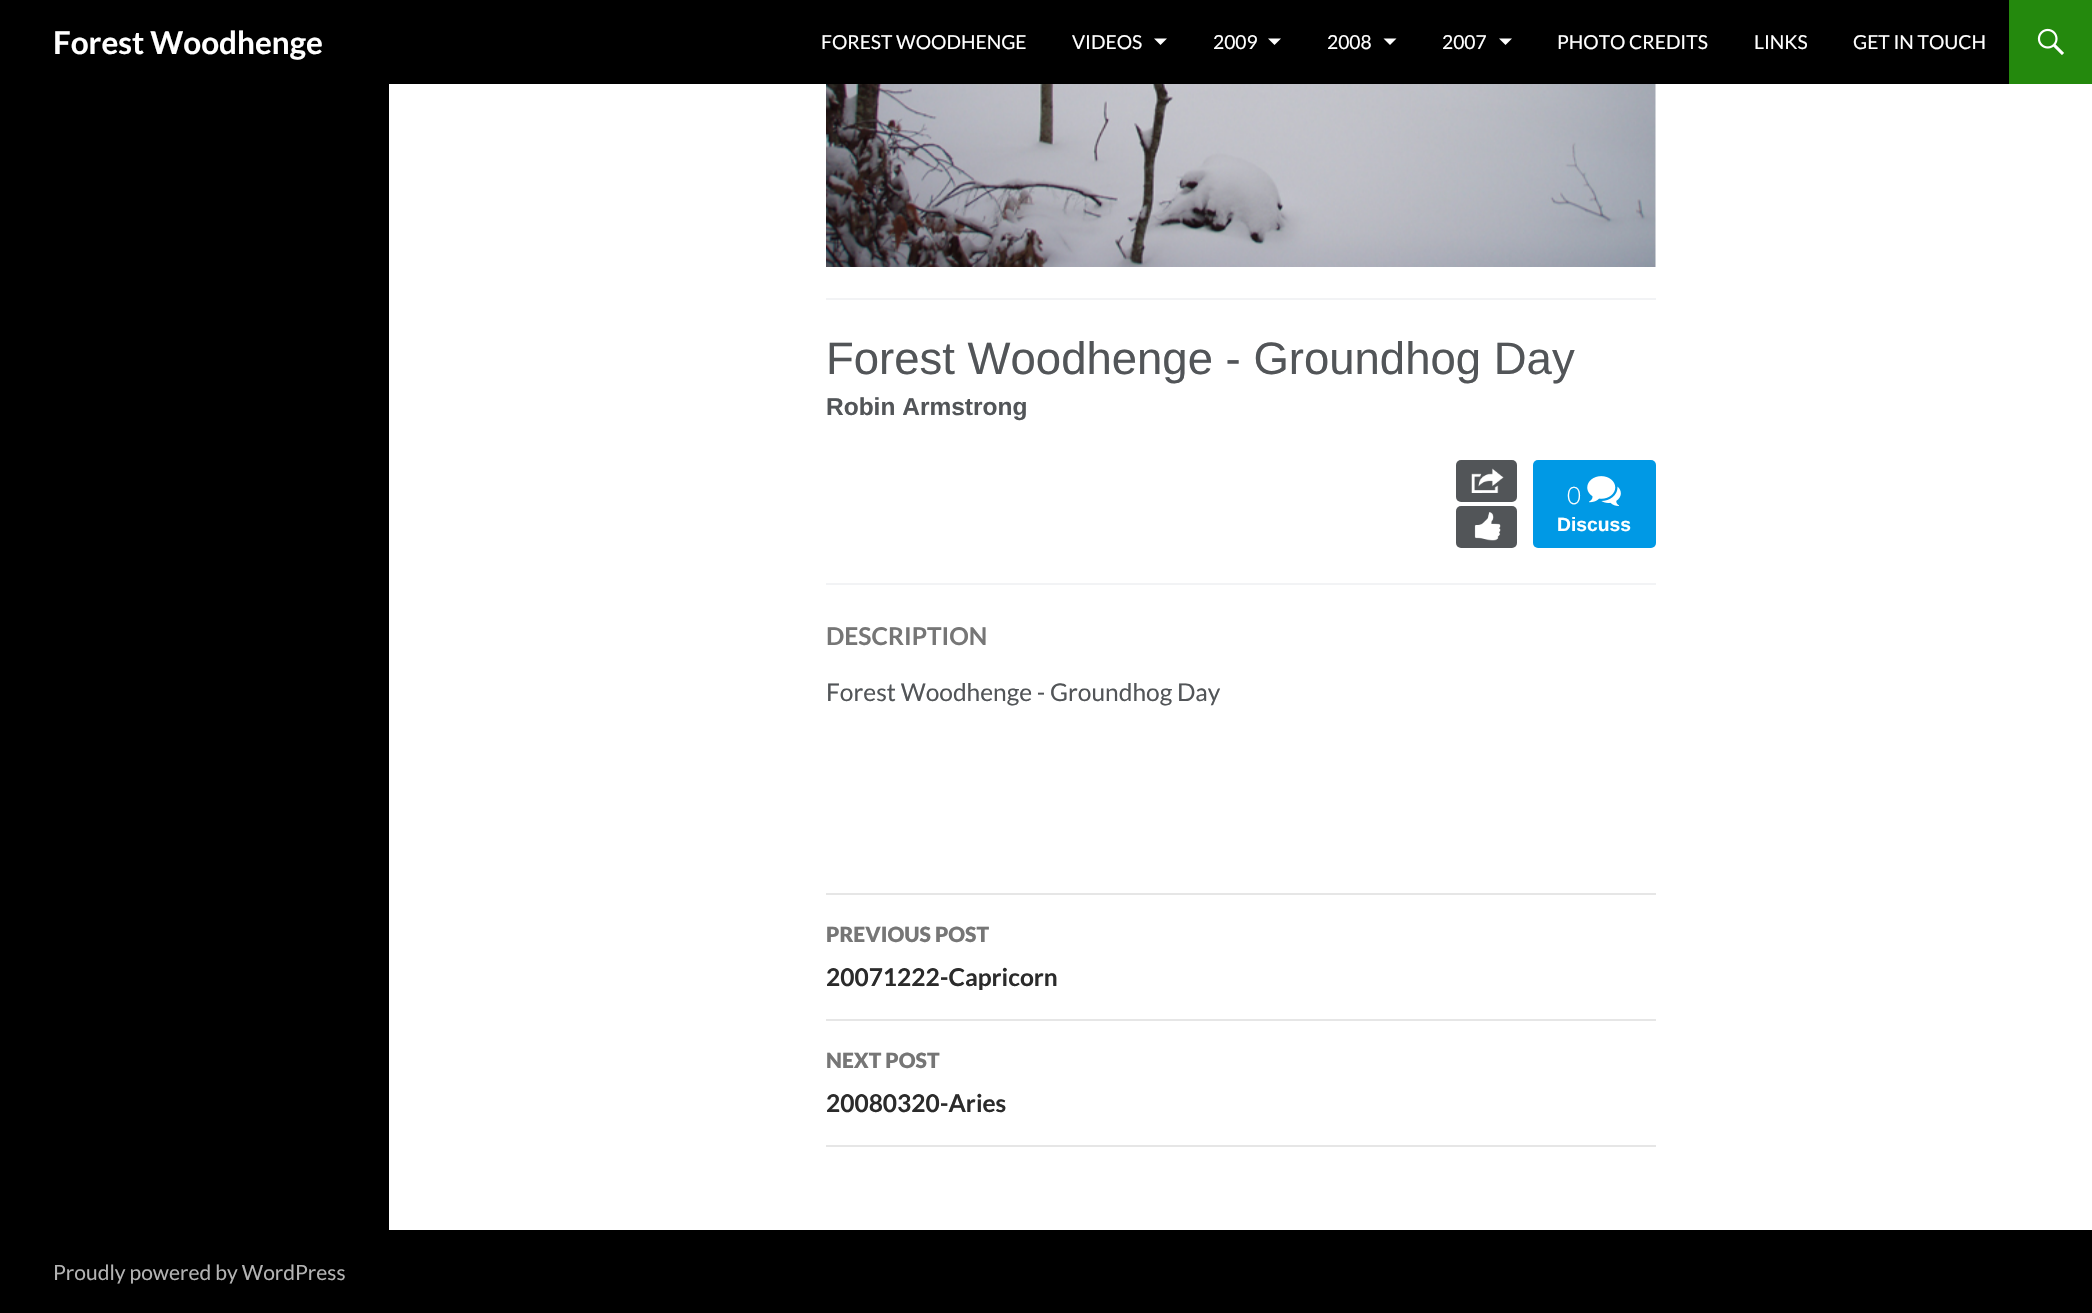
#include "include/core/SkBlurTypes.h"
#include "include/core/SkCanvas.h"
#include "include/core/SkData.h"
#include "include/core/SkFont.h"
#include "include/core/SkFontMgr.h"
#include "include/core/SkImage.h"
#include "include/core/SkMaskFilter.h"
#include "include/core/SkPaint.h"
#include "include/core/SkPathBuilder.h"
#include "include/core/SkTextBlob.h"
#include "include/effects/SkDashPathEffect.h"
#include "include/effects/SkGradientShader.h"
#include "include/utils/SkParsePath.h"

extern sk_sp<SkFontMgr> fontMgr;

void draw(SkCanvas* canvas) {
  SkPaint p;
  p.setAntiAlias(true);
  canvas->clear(SK_ColorWHITE);
  p.setColor(SK_ColorBLACK);
  canvas->drawRect(SkRect::MakeLTRB(0, 0, 2009, 84), p);
  p.setColor(SK_ColorWHITE);
  canvas->drawPath(SkPathBuilder().moveTo(1154, 38.5f).lineTo(1160.5f, 45).lineTo(1167, 38.5f).close().detach(), p);
  canvas->drawPath(SkPathBuilder().moveTo(1268, 38.5f).lineTo(1274.5f, 45).lineTo(1281, 38.5f).close().detach(), p);
  canvas->drawPath(SkPathBuilder().moveTo(1383.5f, 38.5f).lineTo(1390, 45).lineTo(1396.5f, 38.5f).close().detach(), p);
  canvas->drawPath(SkPathBuilder().moveTo(1499, 38.5f).lineTo(1505.5f, 45).lineTo(1512, 38.5f).close().detach(), p);
  p.setColor(SkColorSetRGB(36, 137, 13));
  canvas->drawRect(SkRect::MakeLTRB(2009, 0, 2092, 84), p);
  canvas->drawImageRect(SkImages::DeferredFromEncodedData(SkData::MakeFromFileName("images/1.png")), SkRect::MakeLTRB(2037, 28, 2064, 55), SkSamplingOptions());
  p.setColor(SK_ColorBLACK);
  canvas->drawRect(SkRect::MakeLTRB(0, 84, 389, 1230), p);
  canvas->drawImageRect(SkImages::DeferredFromEncodedData(SkData::MakeFromFileName("images/2.png")), SkRect::MakeLTRB(826, 84, 1656, 267), SkSamplingOptions());
  p.setColor(SkColorSetRGB(242, 243, 245));
  canvas->drawRect(SkRect::MakeLTRB(826, 298, 1656, 300), p);
  canvas->drawRect(SkRect::MakeLTRB(826, 583, 1656, 585), p);
  p.setColor(SkColorSetRGB(82, 85, 88));
  canvas->drawRoundRect(SkRect::MakeLTRB(1456, 460, 1517, 502), 5, 5, p);
  canvas->drawImageRect(SkImages::DeferredFromEncodedData(SkData::MakeFromFileName("images/3.png")), SkRect::MakeLTRB(1471, 468, 1504, 493), SkSamplingOptions());
  canvas->drawRoundRect(SkRect::MakeLTRB(1456, 506, 1517, 548), 5, 5, p);
  canvas->drawImageRect(SkImages::DeferredFromEncodedData(SkData::MakeFromFileName("images/4.png")), SkRect::MakeLTRB(1474, 512, 1501, 541), SkSamplingOptions());
  p.setColor(SkColorSetRGB(0, 153, 229));
  canvas->drawRoundRect(SkRect::MakeLTRB(1533, 460, 1656, 548), 5, 5, p);
  canvas->drawImageRect(SkImages::DeferredFromEncodedData(SkData::MakeFromFileName("images/5.png")), SkRect::MakeLTRB(1587, 476, 1621, 506), SkSamplingOptions());
  p.setColor(SkColorSetRGB(230, 230, 230));
  canvas->drawRect(SkRect::MakeLTRB(826, 893, 1656, 895), p);
  canvas->drawRect(SkRect::MakeLTRB(826, 1019, 1656, 1021), p);
  canvas->drawRect(SkRect::MakeLTRB(826, 1145, 1656, 1147), p);
  p.setColor(SK_ColorBLACK);
  canvas->drawRect(SkRect::MakeLTRB(0, 1230, 2092, 1313), p);
  SkFont font1(fontMgr->matchFamilyStyle("Lato", SkFontStyle::Bold()), 31.5f);
  font1.setSubpixel(true);
  p.setColor(SK_ColorWHITE);
  canvas->drawString("Forest Woodhenge", 53, 54, font1, p);
  SkFont font2(fontMgr->matchFamilyStyle("Lato", SkFontStyle::Normal()), 19.25f);
  font2.setSubpixel(true);
  canvas->drawString("FOREST WOODHENGE", 821, 49, font2, p);
  canvas->drawString("VIDEOS", 1072, 49, font2, p);
  canvas->drawString("2009", 1213, 49, font2, p);
  canvas->drawString("2008", 1327, 49, font2, p);
  canvas->drawString("2007", 1442, 49, font2, p);
  canvas->drawString("PHOTO CREDITS", 1557, 49, font2, p);
  canvas->drawString("LINKS", 1754, 49, font2, p);
  canvas->drawString("GET IN TOUCH", 1853, 49, font2, p);
  SkFont font3(fontMgr->matchFamilyStyle("Liberation Sans", SkFontStyle::Normal()), 45.5f);
  font3.setSubpixel(true);
  p.setColor(SkColorSetRGB(82, 85, 88));
  canvas->drawString("Forest Woodhenge - Groundhog Day", 826, 374, font3, p);
  SkFont font4(fontMgr->matchFamilyStyle("Liberation Sans", SkFontStyle::Bold()), 24.5f);
  font4.setSubpixel(true);
  canvas->drawString("Robin Armstrong", 826, 415, font4, p);
  SkFont font5(fontMgr->matchFamilyStyle("Lato", SkFontStyle(300, SkFontStyle::kNormal_Width, SkFontStyle::kUpright_Slant)), 24);
  font5.setSubpixel(true);
  p.setColor(SK_ColorWHITE);
  canvas->drawString("0", 1567, 504, font5, p);
  SkFont font6(fontMgr->matchFamilyStyle("Liberation Sans", SkFontStyle::Bold()), 19.25f);
  font6.setSubpixel(true);
  canvas->drawString("Discuss", 1557, 531, font6, p);
  SkFont font7(fontMgr->matchFamilyStyle("Lato", SkFontStyle::Bold()), 24.5f);
  font7.setSubpixel(true);
  p.setColor(SkColorSetRGB(118, 118, 118));
  canvas->drawString("DESCRIPTION", 826, 645, font7, p);
  SkFont font8(fontMgr->matchFamilyStyle("Lato", SkFontStyle::Normal()), 24.5f);
  font8.setSubpixel(true);
  p.setColor(SkColorSetRGB(82, 85, 88));
  canvas->drawString("Forest Woodhenge - Groundhog Day", 826, 701, font8, p);
  SkFont font9(fontMgr->matchFamilyStyle("Lato", SkFontStyle(900, SkFontStyle::kNormal_Width, SkFontStyle::kUpright_Slant)), 21);
  font9.setSubpixel(true);
  p.setColor(SkColorSetRGB(118, 118, 118));
  canvas->drawString("PREVIOUS POST", 826, 942, font9, p);
  p.setColor(SkColorSetRGB(43, 43, 43));
  canvas->drawString("20071222-Capricorn", 826, 986, font7, p);
  p.setColor(SkColorSetRGB(118, 118, 118));
  canvas->drawString("NEXT POST", 826, 1068, font9, p);
  p.setColor(SkColorSetRGB(43, 43, 43));
  canvas->drawString("20080320-Aries", 826, 1112, font7, p);
  SkFont font10(fontMgr->matchFamilyStyle("Lato", SkFontStyle::Normal()), 21);
  font10.setSubpixel(true);
  p.setColor(SkColorSetRGB(179, 179, 179));
  canvas->drawString("Proudly powered by WordPress", 53, 1280, font10, p);
}
